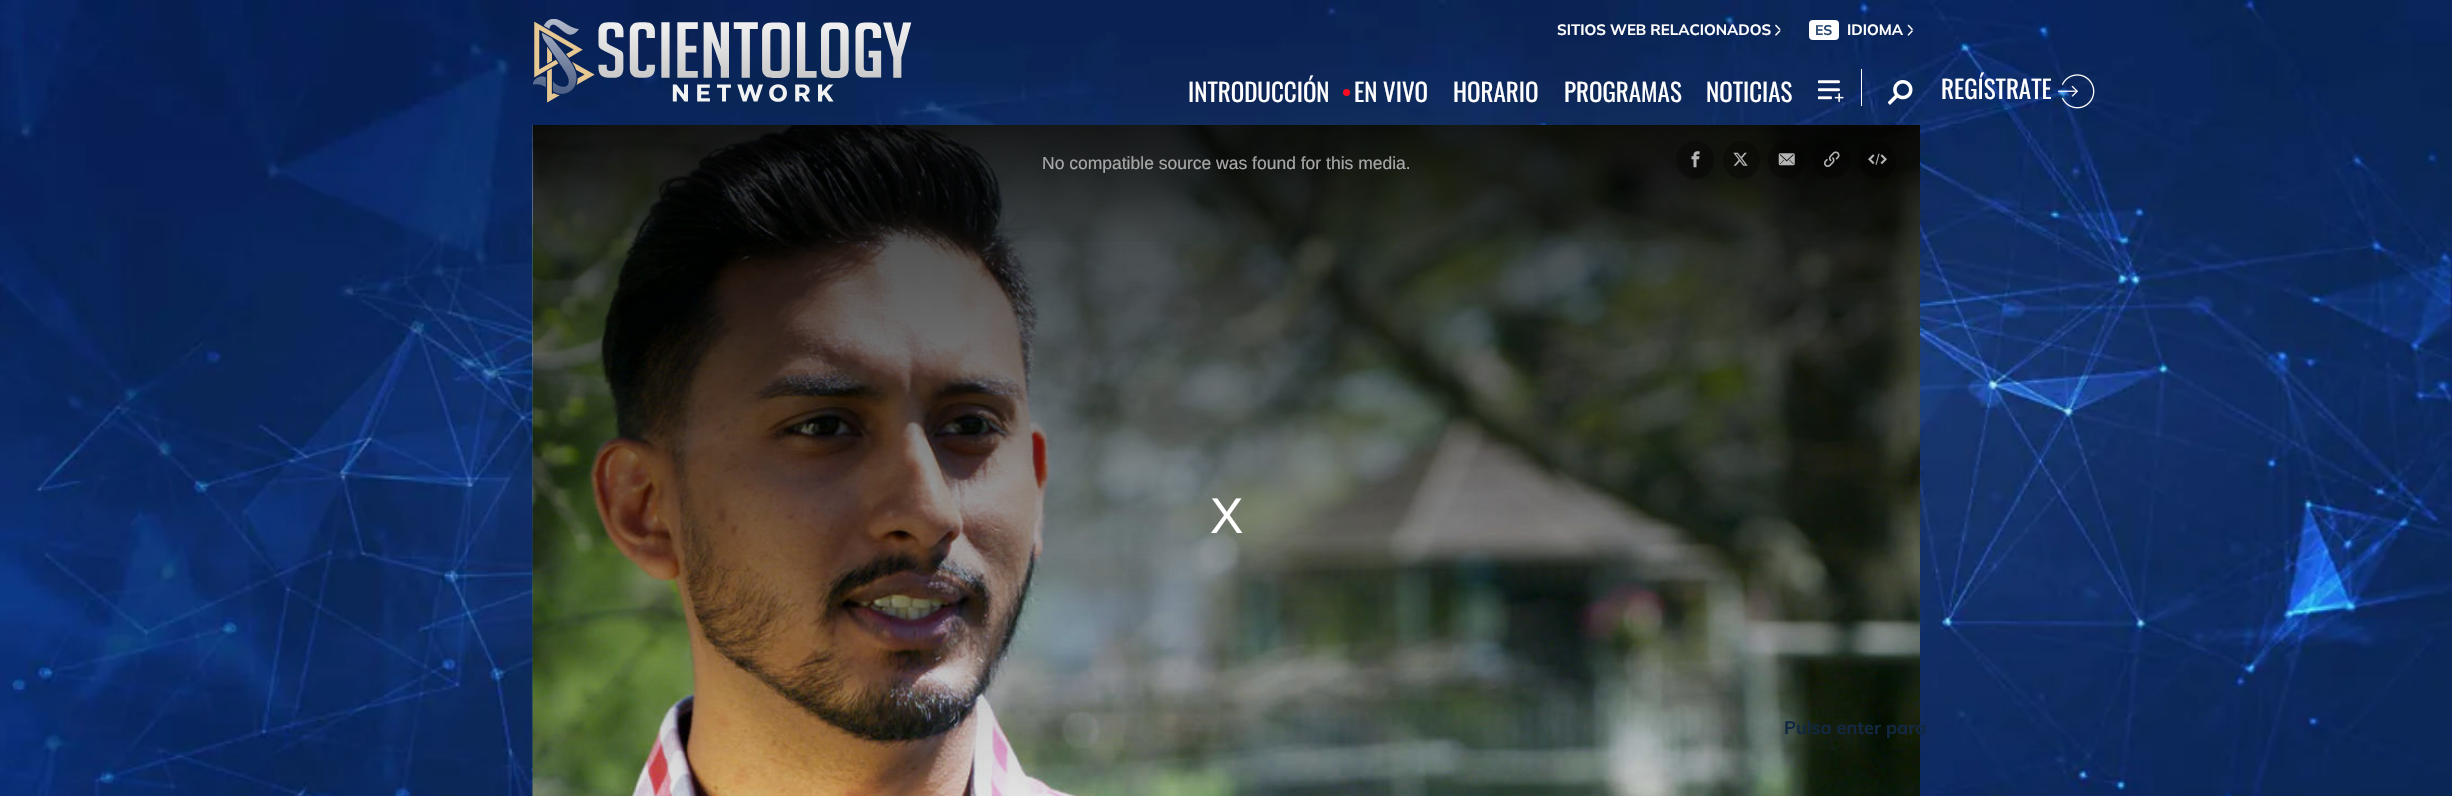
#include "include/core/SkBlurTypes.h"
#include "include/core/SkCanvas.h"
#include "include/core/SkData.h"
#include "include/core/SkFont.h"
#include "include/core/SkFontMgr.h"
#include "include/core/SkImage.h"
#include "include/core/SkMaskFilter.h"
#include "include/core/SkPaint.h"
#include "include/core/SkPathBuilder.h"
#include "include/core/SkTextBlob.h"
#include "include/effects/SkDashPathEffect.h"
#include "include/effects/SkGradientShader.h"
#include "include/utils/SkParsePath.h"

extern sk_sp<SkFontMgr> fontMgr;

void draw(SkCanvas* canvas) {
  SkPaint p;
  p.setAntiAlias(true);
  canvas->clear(SK_ColorWHITE);
  canvas->drawImageRect(SkImages::DeferredFromEncodedData(SkData::MakeFromFileName("images/1.png")), SkRect::MakeLTRB(0, 0, 2452, 796), SkSamplingOptions());
  canvas->drawImageRect(SkImages::DeferredFromEncodedData(SkData::MakeFromFileName("images/2.png")), SkRect::MakeLTRB(533, 19, 595, 103), SkSamplingOptions());
  canvas->drawImageRect(SkImages::DeferredFromEncodedData(SkData::MakeFromFileName("images/3.png")), SkRect::MakeLTRB(598, 22, 912, 102), SkSamplingOptions());
  canvas->drawImageRect(SkImages::DeferredFromEncodedData(SkData::MakeFromFileName("images/4.png")), SkRect::MakeLTRB(1775, 24, 1781, 36), SkSamplingOptions());
  p.setColor(SK_ColorWHITE);
  canvas->drawRoundRect(SkRect::MakeLTRB(1809, 20, 1839, 40), 4, 4, p);
  canvas->drawImageRect(SkImages::DeferredFromEncodedData(SkData::MakeFromFileName("images/5.png")), SkRect::MakeLTRB(1907, 24, 1914, 36), SkSamplingOptions());
  p.setColor(SkColorSetRGB(252, 10, 32));
  canvas->drawCircle(1346.5f, 92.5f, 3.5f, p);
  canvas->drawImageRect(SkImages::DeferredFromEncodedData(SkData::MakeFromFileName("images/6.png")), SkRect::MakeLTRB(1818, 80, 1844, 103), SkSamplingOptions());
  p.setColor(SK_ColorWHITE);
  canvas->drawRect(SkRect::MakeLTRB(1861, 69, 1862, 106), p);
  canvas->drawImageRect(SkImages::DeferredFromEncodedData(SkData::MakeFromFileName("images/7.png")), SkRect::MakeLTRB(1888, 80, 1913, 105), SkSamplingOptions());
  canvas->drawImageRect(SkImages::DeferredFromEncodedData(SkData::MakeFromFileName("images/8.png")), SkRect::MakeLTRB(2058, 74, 2095, 109), SkSamplingOptions());
  canvas->drawImageRect(SkImages::DeferredFromEncodedData(SkData::MakeFromFileName("images/9.png")), SkRect::MakeLTRB(532, 125, 533, 796), SkSamplingOptions());
  canvas->drawImageRect(SkImages::DeferredFromEncodedData(SkData::MakeFromFileName("images/10.png")), SkRect::MakeLTRB(532, 125, 1920, 796), SkSamplingOptions());
  SkFont font1(fontMgr->matchFamilyStyle("Mulish", SkFontStyle::Bold()), 15);
  font1.setSubpixel(true);
  canvas->drawString("SITIOS WEB RELACIONADOS", 1557, 35, font1, p);
  SkFont font2(fontMgr->matchFamilyStyle("Mulish", SkFontStyle::Bold()), 14);
  font2.setSubpixel(true);
  p.setColor(SkColorSetRGB(41, 71, 107));
  canvas->drawString("ES", 1815, 35, font2, p);
  p.setColor(SK_ColorWHITE);
  canvas->drawString("IDIOMA", 1847, 35, font1, p);
  SkFont font3(fontMgr->matchFamilyStyle("Oswald", SkFontStyle::Normal()), 25);
  font3.setSubpixel(true);
  canvas->drawString("INTRODUCCIÓN", 1188, 102, font3, p);
  canvas->drawString("EN VIVO", 1354, 102, font3, p);
  canvas->drawString("HORARIO", 1453, 102, font3, p);
  canvas->drawString("PROGRAMAS", 1564, 102, font3, p);
  canvas->drawString("NOTICIAS", 1706, 102, font3, p);
  canvas->drawString("REGÍSTRATE", 1941, 99, font3, p);
  SkFont font4(fontMgr->matchFamilyStyle("Liberation Sans", SkFontStyle::Normal()), 17.5f);
  font4.setSubpixel(true);
  canvas->drawString("No compatible source was found for this media.", 1042, 169, font4, p);
  {
    const SkColor colors[] = {SkColorSetARGB(128, 0, 0, 0), SkColorSetARGB(0, 0, 0, 0)};
    const float stops[] = {0, 1};
    const SkPoint ends[] = {{1226, 125}, {1226, 250}};
    p.setShader(SkGradientShader::MakeLinear(ends, colors, stops, 2, SkTileMode::kClamp));
    p.setAlpha(255);
  }
  canvas->drawRect(SkRect::MakeLTRB(533, 125, 1920, 242), p);
  p.setShader(nullptr);
  p.setColor(SkColorSetARGB(89, 0, 0, 0));
  canvas->drawRoundRect(SkRect::MakeLTRB(1859, 141, 1896, 179), 18.5f, 18.5f, p);
  canvas->drawImageRect(SkImages::DeferredFromEncodedData(SkData::MakeFromFileName("images/15.png")), SkRect::MakeLTRB(1868, 153, 1887, 165), SkSamplingOptions());
  canvas->drawRoundRect(SkRect::MakeLTRB(1813, 141, 1850, 179), 18.5f, 18.5f, p);
  canvas->drawImageRect(SkImages::DeferredFromEncodedData(SkData::MakeFromFileName("images/14.png")), SkRect::MakeLTRB(1824, 151, 1840, 167), SkSamplingOptions());
  canvas->drawRoundRect(SkRect::MakeLTRB(1768, 141, 1805, 179), 18.5f, 18.5f, p);
  canvas->drawImageRect(SkImages::DeferredFromEncodedData(SkData::MakeFromFileName("images/13.png")), SkRect::MakeLTRB(1778, 153, 1795, 166), SkSamplingOptions());
  canvas->drawRoundRect(SkRect::MakeLTRB(1723, 141, 1760, 179), 18.5f, 18.5f, p);
  canvas->drawImageRect(SkImages::DeferredFromEncodedData(SkData::MakeFromFileName("images/12.png")), SkRect::MakeLTRB(1733, 152, 1748, 166), SkSamplingOptions());
  canvas->drawCircle(1695, 160, 19, p);
  canvas->drawImageRect(SkImages::DeferredFromEncodedData(SkData::MakeFromFileName("images/11.png")), SkRect::MakeLTRB(1691, 151, 1700, 168), SkSamplingOptions());
  SkFont font5(fontMgr->matchFamilyStyle("Liberation Sans", SkFontStyle::Normal()), 50);
  font5.setSubpixel(true);
  p.setColor(SK_ColorWHITE);
  canvas->drawString("X", 1210, 533, font5, p);
  SkFont font6(fontMgr->matchFamilyStyle("Mulish", SkFontStyle::Bold()), 18);
  font6.setSubpixel(true);
  p.setColor(SkColorSetRGB(18, 39, 65));
  canvas->drawString("Pulsa enter para", 1784, 734, font6, p);
}
